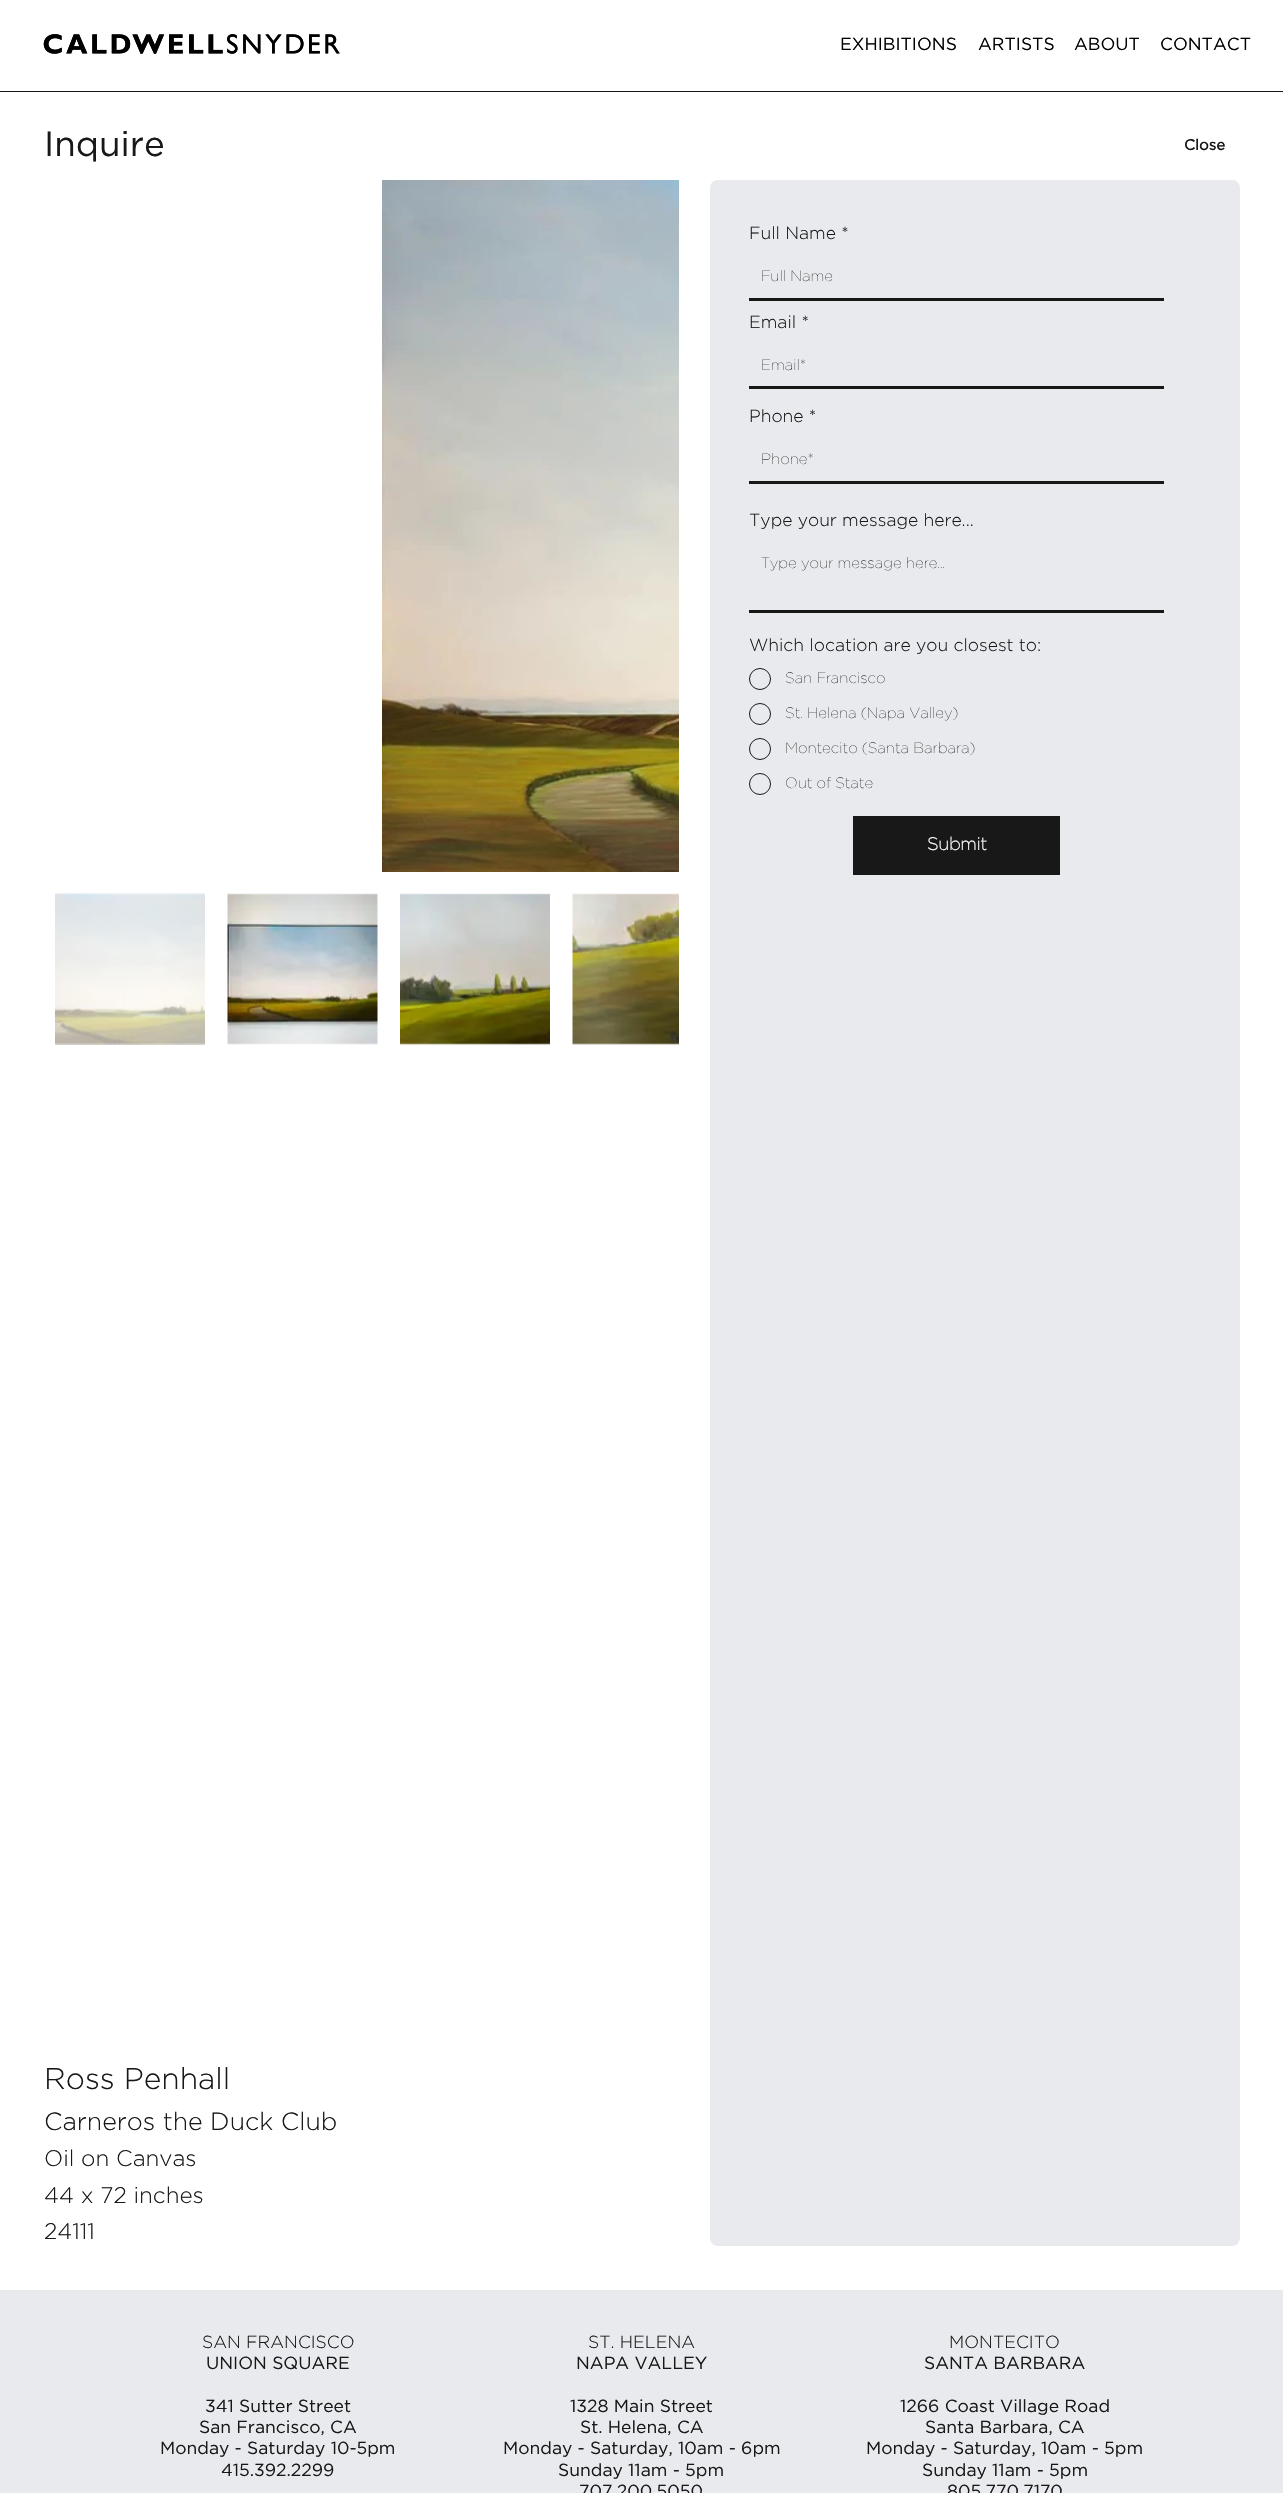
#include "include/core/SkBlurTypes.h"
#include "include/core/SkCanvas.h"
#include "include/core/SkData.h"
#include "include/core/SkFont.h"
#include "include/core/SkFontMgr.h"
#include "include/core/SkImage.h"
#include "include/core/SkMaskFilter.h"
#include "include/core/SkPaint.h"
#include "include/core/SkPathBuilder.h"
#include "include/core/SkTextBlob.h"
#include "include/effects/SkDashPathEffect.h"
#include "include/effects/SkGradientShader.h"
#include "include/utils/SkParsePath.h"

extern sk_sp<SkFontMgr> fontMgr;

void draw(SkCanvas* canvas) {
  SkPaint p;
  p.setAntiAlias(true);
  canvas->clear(SK_ColorWHITE);
  canvas->drawImageRect(SkImages::DeferredFromEncodedData(SkData::MakeFromFileName("images/1.png")), SkRect::MakeLTRB(43, 34, 340, 54), SkSamplingOptions());
  p.setColor(SkColorSetRGB(24, 24, 24));
  canvas->drawRect(SkRect::MakeLTRB(0, 91, 1283, 92), p);
  canvas->drawImageRect(SkImages::DeferredFromEncodedData(SkData::MakeFromFileName("images/2.png")), SkRect::MakeLTRB(382, 180, 679, 872), SkSamplingOptions());
  canvas->drawImageRect(SkImages::DeferredFromEncodedData(SkData::MakeFromFileName("images/3.png")), SkRect::MakeLTRB(55, 893, 205, 1045), SkSamplingOptions());
  canvas->drawImageRect(SkImages::DeferredFromEncodedData(SkData::MakeFromFileName("images/4.png")), SkRect::MakeLTRB(227, 893, 378, 1045), SkSamplingOptions());
  canvas->drawImageRect(SkImages::DeferredFromEncodedData(SkData::MakeFromFileName("images/5.png")), SkRect::MakeLTRB(400, 893, 550, 1045), SkSamplingOptions());
  canvas->drawImageRect(SkImages::DeferredFromEncodedData(SkData::MakeFromFileName("images/6.png")), SkRect::MakeLTRB(572, 893, 679, 1045), SkSamplingOptions());
  p.setColor(SkColorSetRGB(232, 234, 237));
  canvas->drawRoundRect(SkRect::MakeLTRB(710, 180, 1240, 2246), 8, 8, p);
  p.setColor(SkColorSetRGB(24, 24, 24));
  canvas->drawRect(SkRect::MakeLTRB(749, 298, 1164, 301), p);
  canvas->drawRect(SkRect::MakeLTRB(749, 386, 1164, 389), p);
  canvas->drawRect(SkRect::MakeLTRB(749, 481, 1164, 484), p);
  canvas->drawRect(SkRect::MakeLTRB(749, 610, 1164, 613), p);
  p.setStyle(SkPaint::kStroke_Style);
  p.setStrokeWidth(1);
  canvas->drawCircle(760, 679, 10.5f, p);
  canvas->drawCircle(760, 714, 10.5f, p);
  canvas->drawCircle(760, 749, 10.5f, p);
  canvas->drawCircle(760, 784, 10.5f, p);
  p.setStyle(SkPaint::kFill_Style);
  canvas->drawRect(SkRect::MakeLTRB(853, 816, 1060, 875), p);
  p.setColor(SkColorSetRGB(232, 234, 237));
  canvas->drawRect(SkRect::MakeLTRB(0, 2290, 1283, 2493), p);
  SkFont font1(fontMgr->matchFamilyStyle("Gotham", SkFontStyle::Normal()), 17.5f);
  font1.setSubpixel(true);
  p.setColor(SK_ColorBLACK);
  canvas->drawString("EXHIBITIONS", 840, 50, font1, p);
  canvas->drawString("ARTISTS", 978, 50, font1, p);
  canvas->drawString("ABOUT", 1074, 50, font1, p);
  canvas->drawString("CONTACT", 1160, 50, font1, p);
  SkFont font2(fontMgr->matchFamilyStyle("Gotham", SkFontStyle::Normal()), 35);
  font2.setSubpixel(true);
  p.setColor(SkColorSetRGB(24, 24, 24));
  canvas->drawString("Inquire", 44, 156, font2, p);
  SkFont font3(fontMgr->matchFamilyStyle("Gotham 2", SkFontStyle::Bold()), 15);
  font3.setSubpixel(true);
  canvas->drawString("Close", 1184, 150, font3, p);
  SkFont font4(fontMgr->matchFamilyStyle("Gotham", SkFontStyle(300, SkFontStyle::kNormal_Width, SkFontStyle::kUpright_Slant)), 17.5f);
  font4.setSubpixel(true);
  canvas->drawString("Full Name *", 749, 239, font4, p);
  SkFont font5(fontMgr->matchFamilyStyle("Gotham", SkFontStyle(100, SkFontStyle::kNormal_Width, SkFontStyle::kUpright_Slant)), 15);
  font5.setSubpixel(true);
  canvas->drawString("Full Name", 761, 281, font5, p);
  canvas->drawString("Email *", 749, 328, font4, p);
  canvas->drawString("Email*", 761, 370, font5, p);
  canvas->drawString("Phone *", 749, 422, font4, p);
  canvas->drawString("Phone*", 761, 464, font5, p);
  canvas->drawString("Type your message here...", 749, 526, font4, p);
  canvas->drawString("Type your message here...", 761, 568, font5, p);
  canvas->drawString("Which location are you closest to:", 749, 651, font4, p);
  canvas->drawString("San Francisco", 785, 683, font5, p);
  canvas->drawString("St. Helena (Napa Valley)", 785, 718, font5, p);
  canvas->drawString("Montecito (Santa Barbara)", 785, 753, font5, p);
  canvas->drawString("Out of State", 785, 788, font5, p);
  SkFont font6(fontMgr->matchFamilyStyle("Gotham", SkFontStyle::Bold()), 17.5f);
  font6.setSubpixel(true);
  p.setColor(SK_ColorWHITE);
  canvas->drawString("Submit", 927, 850, font6, p);
  SkFont font7(fontMgr->matchFamilyStyle("Gotham", SkFontStyle(300, SkFontStyle::kNormal_Width, SkFontStyle::kUpright_Slant)), 30);
  font7.setSubpixel(true);
  p.setColor(SkColorSetRGB(24, 24, 24));
  canvas->drawString("Ross Penhall", 44, 2089, font7, p);
  SkFont font8(fontMgr->matchFamilyStyle("Gotham", SkFontStyle(300, SkFontStyle::kNormal_Width, SkFontStyle::kUpright_Slant)), 25);
  font8.setSubpixel(true);
  canvas->drawString("Carneros the Duck Club", 44, 2130, font8, p);
  SkFont font9(fontMgr->matchFamilyStyle("Gotham", SkFontStyle(300, SkFontStyle::kNormal_Width, SkFontStyle::kUpright_Slant)), 22.5f);
  font9.setSubpixel(true);
  canvas->drawString("Oil on Canvas", 44, 2166, font9, p);
  canvas->drawString("44 x 72 inches", 44, 2203, font9, p);
  canvas->drawString("24111", 44, 2239, font9, p);
  canvas->drawString("SAN FRANCISCO", 202, 2348, font4, p);
  canvas->drawString("UNION SQUARE", 206, 2369, font1, p);
  canvas->drawString("341 Sutter Street", 205, 2412, font1, p);
  canvas->drawString("San Francisco, CA", 199, 2433, font1, p);
  canvas->drawString("Monday - Saturday 10-5pm", 160, 2454, font1, p);
  canvas->drawString("415.392.2299", 221, 2476, font1, p);
  canvas->drawString("ST. HELENA", 588, 2348, font4, p);
  canvas->drawString("NAPA VALLEY", 576, 2369, font1, p);
  canvas->drawString("1328 Main Street", 570, 2412, font1, p);
  canvas->drawString("St. Helena, CA", 580, 2433, font1, p);
  canvas->drawString("Monday - Saturday, 10am - 6pm", 503, 2454, font1, p);
  canvas->drawString("Sunday 11am - 5pm", 558, 2476, font1, p);
  canvas->drawString("707.200.5050", 579, 2497, font1, p);
  canvas->drawString("MONTECITO", 949, 2348, font4, p);
  canvas->drawString("SANTA BARBARA", 924, 2369, font1, p);
  canvas->drawString("1266 Coast Village Road", 900, 2412, font1, p);
  canvas->drawString("Santa Barbara, CA", 925, 2433, font1, p);
  canvas->drawString("Monday - Saturday, 10am - 5pm", 866, 2454, font1, p);
  canvas->drawString("Sunday 11am - 5pm", 922, 2476, font1, p);
  canvas->drawString("805.770.7170", 947, 2497, font1, p);
}
